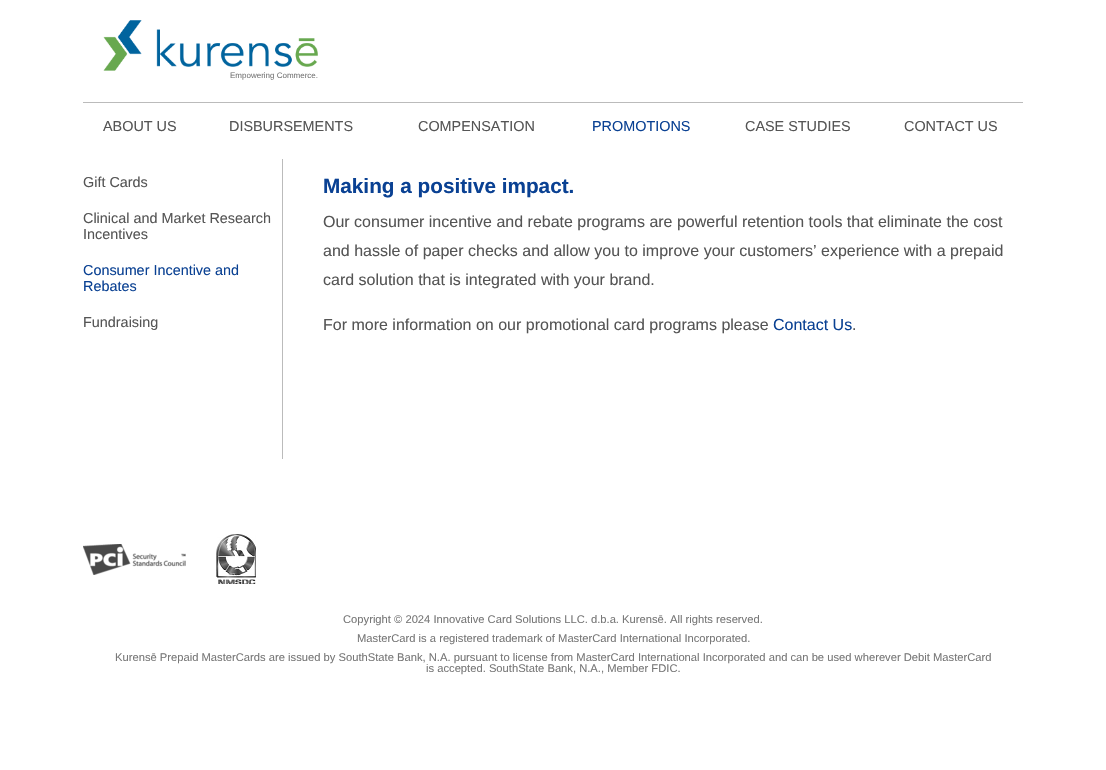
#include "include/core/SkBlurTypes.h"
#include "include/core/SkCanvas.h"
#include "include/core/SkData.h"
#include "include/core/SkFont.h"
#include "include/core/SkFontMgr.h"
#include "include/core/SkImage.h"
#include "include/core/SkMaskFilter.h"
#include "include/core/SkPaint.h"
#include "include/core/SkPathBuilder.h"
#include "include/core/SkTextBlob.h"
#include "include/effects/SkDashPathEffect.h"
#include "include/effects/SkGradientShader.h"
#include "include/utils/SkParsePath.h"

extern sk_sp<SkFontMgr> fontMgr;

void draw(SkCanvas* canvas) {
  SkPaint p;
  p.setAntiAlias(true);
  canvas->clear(SK_ColorWHITE);
  canvas->drawImageRect(SkImages::DeferredFromEncodedData(SkData::MakeFromFileName("images/1.png")), SkRect::MakeLTRB(103, 20, 318, 71), SkSamplingOptions());
  p.setColor(SkColorSetRGB(187, 187, 187));
  canvas->drawRect(SkRect::MakeLTRB(83, 102, 1023, 103), p);
  canvas->drawRect(SkRect::MakeLTRB(282, 159, 283, 459), p);
  canvas->drawImageRect(SkImages::DeferredFromEncodedData(SkData::MakeFromFileName("images/2.png")), SkRect::MakeLTRB(83, 544, 186, 575), SkSamplingOptions());
  canvas->drawImageRect(SkImages::DeferredFromEncodedData(SkData::MakeFromFileName("images/3.png")), SkRect::MakeLTRB(216, 534, 256, 584), SkSamplingOptions());
  SkFont font1(fontMgr->matchFamilyStyle("Liberation Sans", SkFontStyle::Normal()), 8);
  font1.setSubpixel(true);
  p.setColor(SkColorSetRGB(119, 119, 119));
  canvas->drawString("Empowering Commerce.", 230, 78, font1, p);
  SkFont font2(fontMgr->matchFamilyStyle("Liberation Sans", SkFontStyle::Normal()), 14.4f);
  font2.setSubpixel(true);
  p.setColor(SkColorSetRGB(85, 85, 85));
  canvas->drawString("ABOUT US", 103, 131, font2, p);
  canvas->drawString("DISBURSEMENTS", 229, 131, font2, p);
  canvas->drawString("COMPENSATION", 418, 131, font2, p);
  p.setColor(SkColorSetRGB(10, 65, 147));
  canvas->drawString("PROMOTIONS", 592, 131, font2, p);
  p.setColor(SkColorSetRGB(85, 85, 85));
  canvas->drawString("CASE STUDIES", 745, 131, font2, p);
  canvas->drawString("CONTACT US", 904, 131, font2, p);
  canvas->drawString("Gift Cards", 83, 187, font2, p);
  canvas->drawString("Clinical and Market Research", 83, 223, font2, p);
  canvas->drawString("Incentives", 83, 239, font2, p);
  p.setColor(SkColorSetRGB(10, 65, 147));
  canvas->drawString("Consumer Incentive and", 83, 275, font2, p);
  canvas->drawString("Rebates", 83, 291, font2, p);
  p.setColor(SkColorSetRGB(85, 85, 85));
  canvas->drawString("Fundraising", 83, 327, font2, p);
  SkFont font3(fontMgr->matchFamilyStyle("Liberation Sans", SkFontStyle::Bold()), 20.75f);
  font3.setSubpixel(true);
  p.setColor(SkColorSetRGB(10, 65, 147));
  canvas->drawString("Making a positive impact.", 323, 193, font3, p);
  SkFont font4(fontMgr->matchFamilyStyle("Liberation Sans", SkFontStyle::Normal()), 16);
  font4.setSubpixel(true);
  p.setColor(SkColorSetRGB(85, 85, 85));
  canvas->drawString("Our consumer incentive and rebate programs are powerful retention tools that eliminate the cost", 323, 227, font4, p);
  canvas->drawString("and hassle of paper checks and allow you to improve your customers’ experience with a prepaid", 323, 256, font4, p);
  canvas->drawString("card solution that is integrated with your brand.", 323, 285, font4, p);
  canvas->drawString("For more information on our promotional card programs please", 323, 330, font4, p);
  p.setColor(SkColorSetRGB(10, 65, 147));
  canvas->drawString("Contact Us", 773, 330, font4, p);
  p.setColor(SkColorSetRGB(85, 85, 85));
  canvas->drawString(".", 852, 330, font4, p);
  SkFont font5(fontMgr->matchFamilyStyle("Liberation Sans", SkFontStyle::Normal()), 11.2f);
  font5.setSubpixel(true);
  p.setColor(SkColorSetRGB(119, 119, 119));
  canvas->drawString("Copyright © 2024 Innovative Card Solutions LLC. d.b.a. Kurensē. All rights reserved.", 343, 623, font5, p);
  canvas->drawString("MasterCard is a registered trademark of MasterCard International Incorporated.", 357, 642, font5, p);
  canvas->drawString("Kurensē Prepaid MasterCards are issued by SouthState Bank, N.A. pursuant to license from MasterCard International Incorporated and can be used wherever Debit MasterCard", 115, 661, font5, p);
  canvas->drawString("is accepted. SouthState Bank, N.A., Member FDIC.", 426, 672, font5, p);
}
